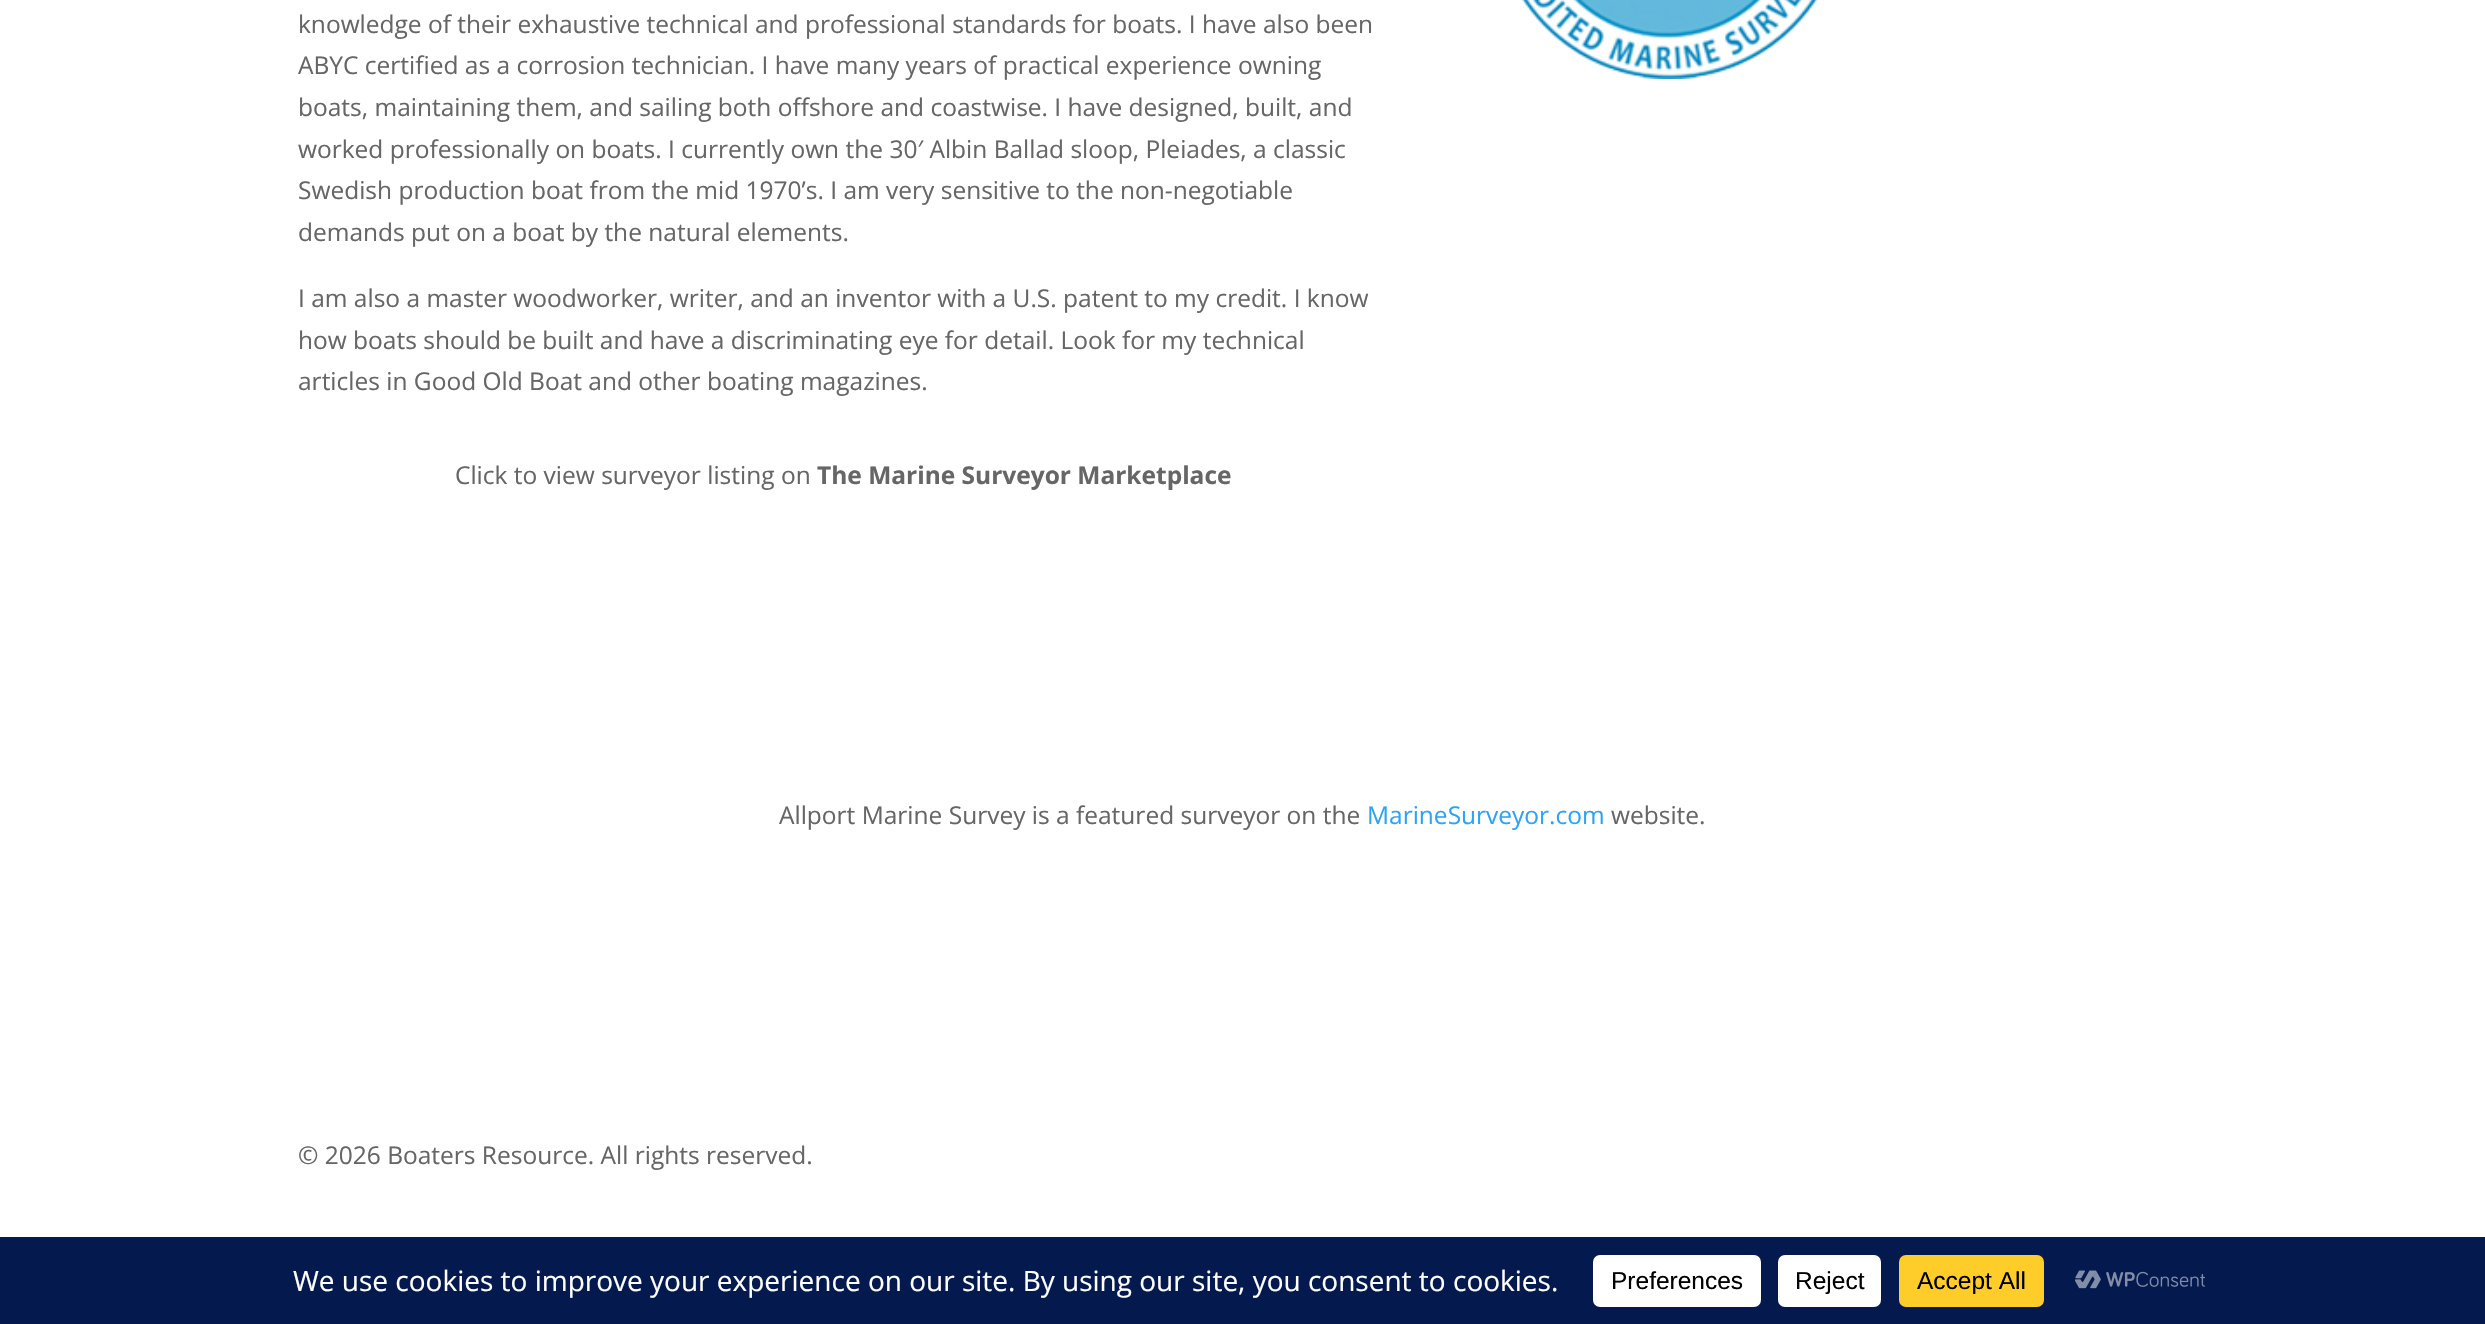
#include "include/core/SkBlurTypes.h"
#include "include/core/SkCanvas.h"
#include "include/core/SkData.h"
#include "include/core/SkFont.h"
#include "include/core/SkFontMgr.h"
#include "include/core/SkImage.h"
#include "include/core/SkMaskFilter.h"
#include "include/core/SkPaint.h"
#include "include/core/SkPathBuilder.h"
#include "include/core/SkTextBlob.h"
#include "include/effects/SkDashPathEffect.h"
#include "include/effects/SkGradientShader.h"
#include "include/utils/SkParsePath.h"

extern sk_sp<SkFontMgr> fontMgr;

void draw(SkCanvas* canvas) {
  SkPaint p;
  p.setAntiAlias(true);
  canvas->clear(SK_ColorWHITE);
  canvas->drawImageRect(SkImages::DeferredFromEncodedData(SkData::MakeFromFileName("images/1.png")), SkRect::MakeLTRB(1522, 0, 1817, 79), SkSamplingOptions());
  p.setColor(SkColorSetRGB(4, 25, 78));
  canvas->drawRect(SkRect::MakeLTRB(0, 1237, 2485, 1324), p);
  p.setColor(SK_ColorWHITE);
  canvas->drawRoundRect(SkRect::MakeLTRB(1593, 1255, 1761, 1307), 7, 7, p);
  canvas->drawRoundRect(SkRect::MakeLTRB(1778, 1255, 1881, 1307), 7, 7, p);
  p.setColor(SkColorSetRGB(255, 205, 42));
  canvas->drawRoundRect(SkRect::MakeLTRB(1899, 1255, 2044, 1307), 7, 7, p);
  canvas->drawImageRect(SkImages::DeferredFromEncodedData(SkData::MakeFromFileName("images/2.png")), SkRect::MakeLTRB(2075, 1270, 2205, 1289), SkSamplingOptions());
  SkFont font1(fontMgr->matchFamilyStyle("Open Sans", SkFontStyle::Normal()), 24.5f);
  font1.setSubpixel(true);
  p.setColor(SkColorSetRGB(102, 102, 102));
  canvas->drawString("knowledge of their exhaustive technical and professional standards for boats. I have also been", 298, 33, font1, p);
  canvas->drawString("ABYC certified as a corrosion technician. I have many years of practical experience owning", 298, 74, font1, p);
  canvas->drawString("boats, maintaining them, and sailing both offshore and coastwise. I have designed, built, and", 298, 116, font1, p);
  canvas->drawString("worked professionally on boats. I currently own the 30′ Albin Ballad sloop, Pleiades, a classic", 298, 158, font1, p);
  canvas->drawString("Swedish production boat from the mid 1970’s. I am very sensitive to the non-negotiable", 298, 199, font1, p);
  canvas->drawString("demands put on a boat by the natural elements.", 298, 241, font1, p);
  canvas->drawString("I am also a master woodworker, writer, and an inventor with a U.S. patent to my credit. I know", 298, 307, font1, p);
  canvas->drawString("how boats should be built and have a discriminating eye for detail. Look for my technical", 298, 349, font1, p);
  canvas->drawString("articles in Good Old Boat and other boating magazines.", 298, 390, font1, p);
  canvas->drawString("Click to view surveyor listing on", 455, 484, font1, p);
  SkFont font2(fontMgr->matchFamilyStyle("Open Sans", SkFontStyle::Bold()), 24.5f);
  font2.setSubpixel(true);
  canvas->drawString("The Marine Surveyor Marketplace", 817, 484, font2, p);
  canvas->drawString("Allport Marine Survey is a featured surveyor on the", 779, 824, font1, p);
  p.setColor(SkColorSetRGB(46, 163, 242));
  canvas->drawString("MarineSurveyor.com", 1367, 824, font1, p);
  p.setColor(SkColorSetRGB(102, 102, 102));
  canvas->drawString("website.", 1611, 824, font1, p);
  canvas->drawString("© 2026 Boaters Resource. All rights reserved.", 298, 1164, font1, p);
  SkFont font3(fontMgr->matchFamilyStyle("Open Sans", SkFontStyle::Normal()), 28);
  font3.setSubpixel(true);
  p.setColor(SK_ColorWHITE);
  canvas->drawString("We use cookies to improve your experience on our site. By using our site, you consent to cookies.", 293, 1291, font3, p);
  SkFont font4(fontMgr->matchFamilyStyle("Liberation Sans", SkFontStyle::Normal()), 24.5f);
  font4.setSubpixel(true);
  p.setColor(SK_ColorBLACK);
  canvas->drawString("Preferences", 1611, 1289, font4, p);
  canvas->drawString("Reject", 1795, 1289, font4, p);
  canvas->drawString("Accept All", 1917, 1289, font4, p);
}
